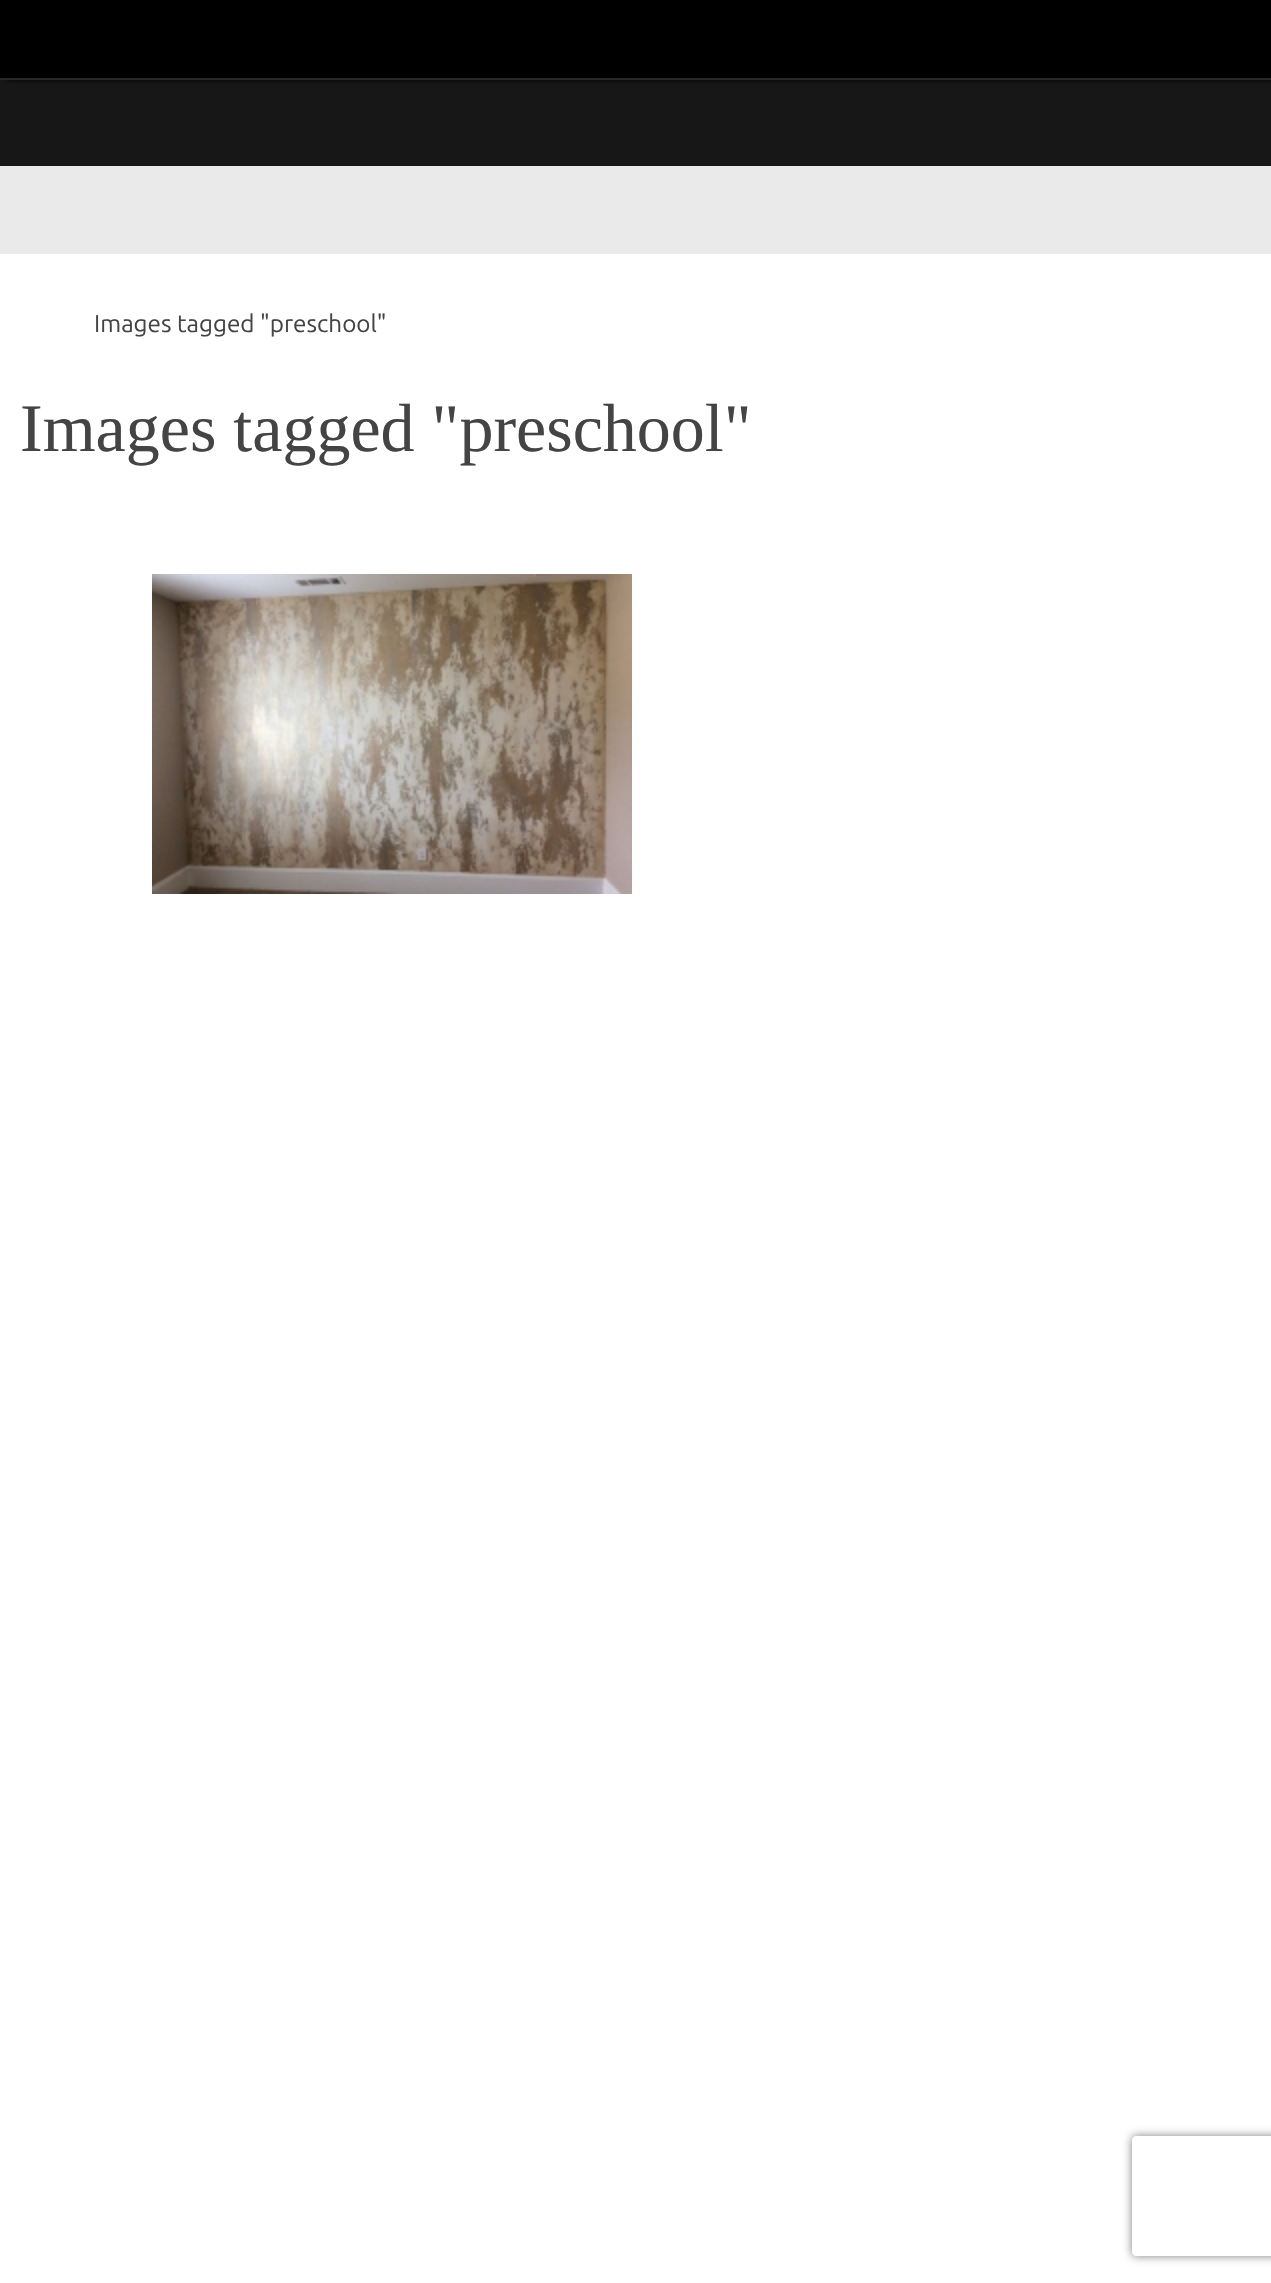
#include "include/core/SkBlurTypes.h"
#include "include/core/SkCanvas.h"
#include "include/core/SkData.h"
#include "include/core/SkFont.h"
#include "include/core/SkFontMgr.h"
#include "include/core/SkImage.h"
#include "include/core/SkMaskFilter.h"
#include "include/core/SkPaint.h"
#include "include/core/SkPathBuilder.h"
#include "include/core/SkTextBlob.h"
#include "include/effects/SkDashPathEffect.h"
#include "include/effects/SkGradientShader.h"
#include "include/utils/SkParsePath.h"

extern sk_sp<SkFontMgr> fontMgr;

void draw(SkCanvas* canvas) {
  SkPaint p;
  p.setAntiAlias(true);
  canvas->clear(SkColorSetRGB(23, 23, 23));
  p.setColor(SK_ColorBLACK);
  p.setMaskFilter(SkMaskFilter::MakeBlur(kNormal_SkBlurStyle, 3));
  canvas->drawRect(SkRect::MakeLTRB(6, 0, 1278, 80), p);
  p.setMaskFilter(nullptr);
  canvas->drawRect(SkRect::MakeLTRB(0, 0, 1271, 78), p);
  p.setColor(SkColorSetRGB(40, 40, 40));
  canvas->drawRect(SkRect::MakeLTRB(0, 78, 1271, 80), p);
  p.setColor(SkColorSetRGB(234, 234, 234));
  canvas->drawRect(SkRect::MakeLTRB(0, 166, 1271, 254), p);
  p.setColor(SK_ColorWHITE);
  canvas->drawRect(SkRect::MakeLTRB(0, 254, 1271, 2283), p);
  canvas->drawImageRect(SkImages::DeferredFromEncodedData(SkData::MakeFromFileName("images/1.png")), SkRect::MakeLTRB(152, 574, 632, 894), SkSamplingOptions());
  canvas->save();
  canvas->clipPath(SkPathBuilder(SkPathFillType::kEvenOdd).moveTo(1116, 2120).lineTo(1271, 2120).lineTo(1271, 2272).lineTo(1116, 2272).close().moveTo(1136, 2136).lineTo(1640, 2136).cubicTo(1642, 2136, 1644, 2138, 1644, 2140).lineTo(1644, 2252).cubicTo(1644, 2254, 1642, 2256, 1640, 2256).lineTo(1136, 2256).cubicTo(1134, 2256, 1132, 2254, 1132, 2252).lineTo(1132, 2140).cubicTo(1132, 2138, 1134, 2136, 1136, 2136).close().detach(), true);
  p.setColor(SkColorSetRGB(128, 128, 128));
  p.setMaskFilter(SkMaskFilter::MakeBlur(kNormal_SkBlurStyle, 5));
  canvas->drawRoundRect(SkRect::MakeLTRB(1132, 2136, 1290, 2256), 4, 4, p);
  p.setMaskFilter(nullptr);
  canvas->restore();
  SkFont font1(fontMgr->matchFamilyStyle("Ubuntu", SkFontStyle::Normal()), 24.25f);
  font1.setSubpixel(true);
  p.setColor(SkColorSetRGB(68, 68, 68));
  canvas->drawString("Images tagged \"preschool\"", 94, 332, font1, p);
  SkFont font2(fontMgr->matchFamilyStyle("Liberation Serif", SkFontStyle::Normal()), 68);
  font2.setSubpixel(true);
  canvas->drawString("Images tagged \"preschool\"", 20, 451, font2, p);
}
